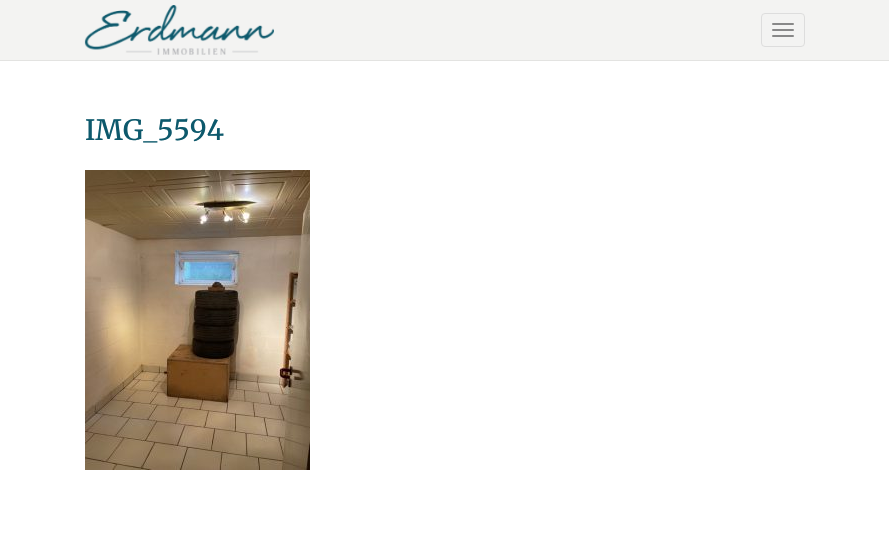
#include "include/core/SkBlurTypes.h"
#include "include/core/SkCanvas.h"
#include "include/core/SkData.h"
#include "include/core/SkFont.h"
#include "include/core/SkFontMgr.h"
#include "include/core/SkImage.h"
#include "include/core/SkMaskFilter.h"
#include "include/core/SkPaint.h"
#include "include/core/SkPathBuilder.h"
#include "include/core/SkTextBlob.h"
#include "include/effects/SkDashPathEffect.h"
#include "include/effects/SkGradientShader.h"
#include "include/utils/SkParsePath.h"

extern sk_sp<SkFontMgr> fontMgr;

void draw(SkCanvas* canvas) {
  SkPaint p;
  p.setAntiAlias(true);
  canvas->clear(SK_ColorWHITE);
  p.setColor(SkColorSetRGB(243, 243, 242));
  canvas->drawRect(SkRect::MakeLTRB(0, 0, 889, 60), p);
  p.setColor(SkColorSetRGB(227, 227, 225));
  canvas->drawRect(SkRect::MakeLTRB(0, 60, 889, 61), p);
  canvas->drawImageRect(SkImages::DeferredFromEncodedData(SkData::MakeFromFileName("images/1.png")), SkRect::MakeLTRB(84, 5, 274, 55), SkSamplingOptions());
  p.setStyle(SkPaint::kStroke_Style);
  p.setStrokeWidth(1);
  p.setColor(SkColorSetRGB(221, 221, 221));
  canvas->drawRoundRect(SkRect::MakeLTRB(761.5f, 13.5f, 804.5f, 46.5f), 3.5f, 3.5f, p);
  p.setStyle(SkPaint::kFill_Style);
  p.setColor(SkColorSetRGB(136, 136, 136));
  canvas->drawRoundRect(SkRect::MakeLTRB(772, 23, 794, 25), 1, 1, p);
  canvas->drawRoundRect(SkRect::MakeLTRB(772, 29, 794, 31), 1, 1, p);
  canvas->drawRoundRect(SkRect::MakeLTRB(772, 35, 794, 37), 1, 1, p);
  canvas->drawImageRect(SkImages::DeferredFromEncodedData(SkData::MakeFromFileName("images/2.png")), SkRect::MakeLTRB(85, 170, 310, 470), SkSamplingOptions());
  SkFont font1(fontMgr->matchFamilyStyle("Merriweather", SkFontStyle(500, SkFontStyle::kNormal_Width, SkFontStyle::kUpright_Slant)), 28);
  font1.setSubpixel(true);
  p.setColor(SkColorSetRGB(13, 89, 108));
  canvas->drawString("IMG_5594", 85, 140, font1, p);
}
